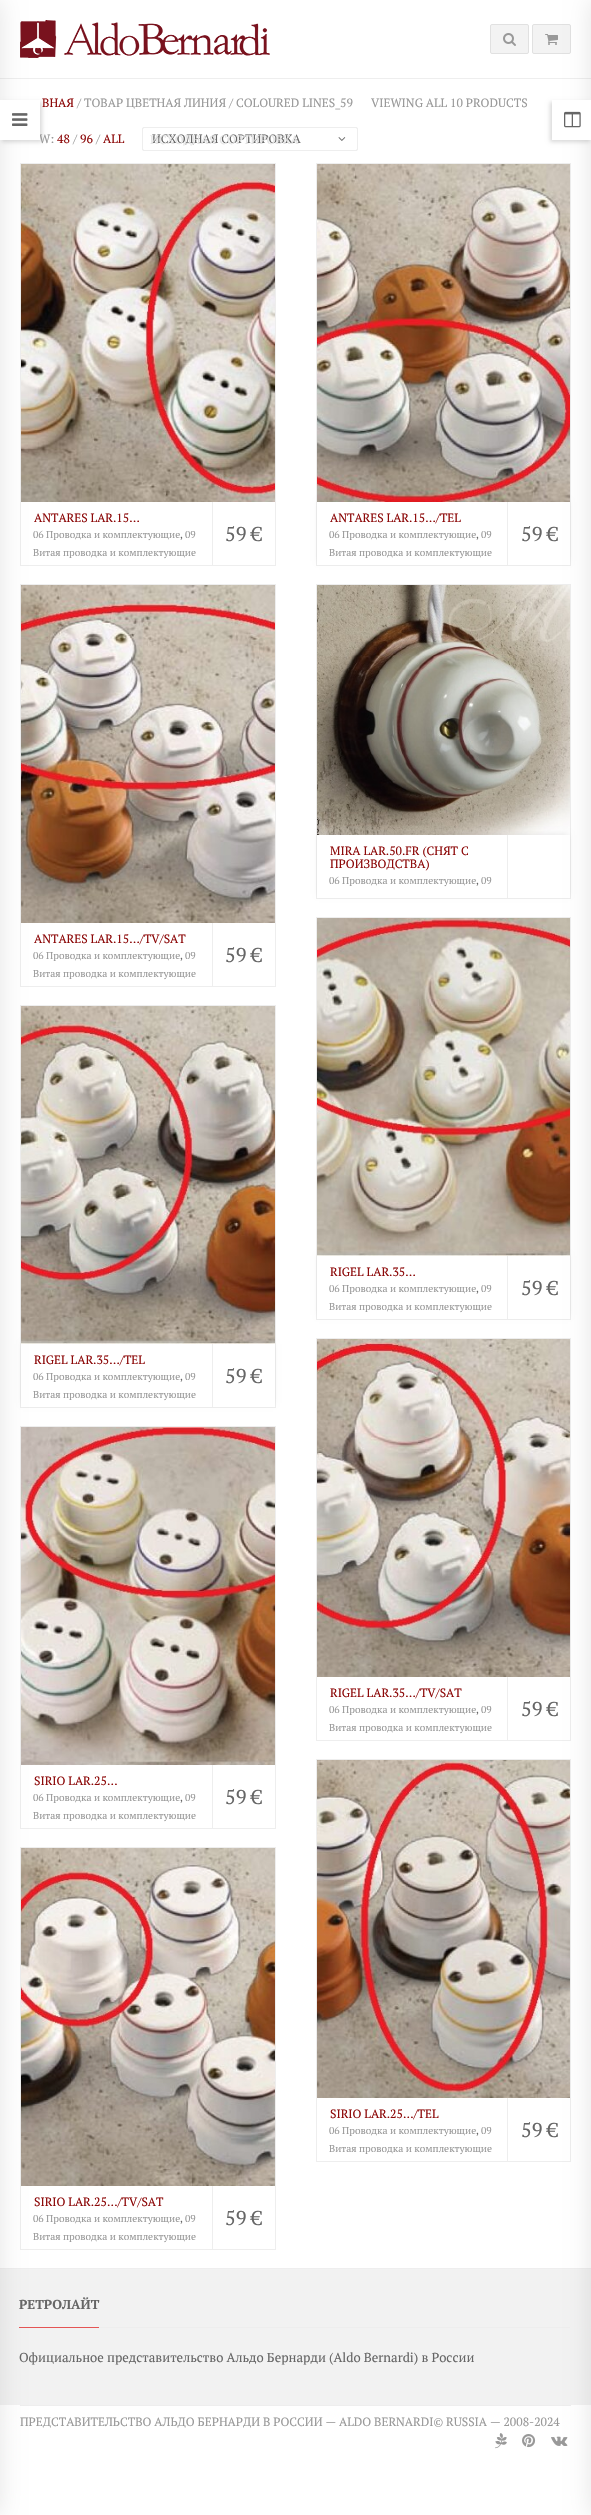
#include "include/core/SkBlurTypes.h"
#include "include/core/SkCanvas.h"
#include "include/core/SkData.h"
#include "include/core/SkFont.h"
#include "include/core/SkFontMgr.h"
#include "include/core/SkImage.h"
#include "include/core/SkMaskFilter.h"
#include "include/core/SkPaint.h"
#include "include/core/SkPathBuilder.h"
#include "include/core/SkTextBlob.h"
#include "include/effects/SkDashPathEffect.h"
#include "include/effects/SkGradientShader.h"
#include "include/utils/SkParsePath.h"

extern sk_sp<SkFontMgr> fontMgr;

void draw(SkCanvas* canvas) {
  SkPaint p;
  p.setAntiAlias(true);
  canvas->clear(SK_ColorWHITE);
  p.setColor(SkColorSetRGB(238, 238, 238));
  canvas->drawRect(SkRect::MakeLTRB(0, 78, 591, 79), p);
  canvas->drawImageRect(SkImages::DeferredFromEncodedData(SkData::MakeFromFileName("images/1.png")), SkRect::MakeLTRB(20, 20, 270, 58), SkSamplingOptions());
  p.setStyle(SkPaint::kStroke_Style);
  p.setStrokeWidth(1);
  canvas->drawRect(SkRect::MakeLTRB(20.5f, 163.5f, 275.5f, 565.5f), p);
  canvas->drawImageRect(SkImages::DeferredFromEncodedData(SkData::MakeFromFileName("images/6.png")), SkRect::MakeLTRB(21, 164, 275, 502), SkSamplingOptions());
  canvas->drawRect(SkRect::MakeLTRB(20.5f, 584.5f, 275.5f, 986.5f), p);
  canvas->drawImageRect(SkImages::DeferredFromEncodedData(SkData::MakeFromFileName("images/9.png")), SkRect::MakeLTRB(21, 585, 275, 923), SkSamplingOptions());
  canvas->drawRect(SkRect::MakeLTRB(20.5f, 1005.5f, 275.5f, 1407.5f), p);
  canvas->drawImageRect(SkImages::DeferredFromEncodedData(SkData::MakeFromFileName("images/11.png")), SkRect::MakeLTRB(21, 1006, 275, 1344), SkSamplingOptions());
  canvas->drawRect(SkRect::MakeLTRB(20.5f, 1426.5f, 275.5f, 1828.5f), p);
  canvas->drawImageRect(SkImages::DeferredFromEncodedData(SkData::MakeFromFileName("images/13.png")), SkRect::MakeLTRB(21, 1427, 275, 1765), SkSamplingOptions());
  canvas->drawRect(SkRect::MakeLTRB(20.5f, 1847.5f, 275.5f, 2249.5f), p);
  canvas->drawImageRect(SkImages::DeferredFromEncodedData(SkData::MakeFromFileName("images/15.png")), SkRect::MakeLTRB(21, 1848, 275, 2186), SkSamplingOptions());
  p.setStyle(SkPaint::kFill_Style);
  canvas->drawRect(SkRect::MakeLTRB(0, 2268, 591, 2269), p);
  p.setColor(SkColorSetRGB(242, 242, 242));
  canvas->drawRect(SkRect::MakeLTRB(0, 2269, 591, 2405), p);
  p.setColor(SkColorSetRGB(228, 85, 85));
  canvas->drawRect(SkRect::MakeLTRB(19, 2327, 99, 2328), p);
  p.setColor(SkColorSetRGB(238, 238, 238));
  canvas->drawRect(SkRect::MakeLTRB(20, 2405, 571, 2406), p);
  p.setColor(SkColorSetARGB(26, 0, 0, 0));
  p.setMaskFilter(SkMaskFilter::MakeBlur(kNormal_SkBlurStyle, 12.5f));
  canvas->drawRect(SkRect::MakeLTRB(-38, 0, 0, 2515), p);
  p.setMaskFilter(nullptr);
  p.setColor(SkColorSetRGB(243, 243, 243));
  canvas->drawRoundRect(SkRect::MakeLTRB(490.5f, 24.5f, 528.5f, 53.5f), 1.5f, 1.5f, p);
  p.setStyle(SkPaint::kStroke_Style);
  p.setColor(SkColorSetRGB(225, 225, 225));
  canvas->drawRoundRect(SkRect::MakeLTRB(490.5f, 24.5f, 528.5f, 53.5f), 1.5f, 1.5f, p);
  canvas->drawImageRect(SkImages::DeferredFromEncodedData(SkData::MakeFromFileName("images/2.png")), SkRect::MakeLTRB(503, 33, 516, 46), SkSamplingOptions());
  p.setStyle(SkPaint::kFill_Style);
  p.setColor(SkColorSetRGB(243, 243, 243));
  canvas->drawRoundRect(SkRect::MakeLTRB(532.5f, 24.5f, 570.5f, 53.5f), 1.5f, 1.5f, p);
  p.setStyle(SkPaint::kStroke_Style);
  p.setColor(SkColorSetRGB(225, 225, 225));
  canvas->drawRoundRect(SkRect::MakeLTRB(532.5f, 24.5f, 570.5f, 53.5f), 1.5f, 1.5f, p);
  canvas->drawImageRect(SkImages::DeferredFromEncodedData(SkData::MakeFromFileName("images/3.png")), SkRect::MakeLTRB(545, 34, 558, 45), SkSamplingOptions());
  p.setStyle(SkPaint::kFill_Style);
  p.setColor(SkColorSetARGB(38, 0, 0, 0));
  p.setMaskFilter(SkMaskFilter::MakeBlur(kNormal_SkBlurStyle, 2));
  canvas->drawRect(SkRect::MakeLTRB(2, 102, 42, 142), p);
  p.setMaskFilter(nullptr);
  p.setStyle(SkPaint::kStroke_Style);
  p.setColor(SkColorSetRGB(238, 238, 238));
  canvas->drawRect(SkRect::MakeLTRB(316.5f, 163.5f, 570.5f, 565.5f), p);
  canvas->drawImageRect(SkImages::DeferredFromEncodedData(SkData::MakeFromFileName("images/7.png")), SkRect::MakeLTRB(317, 164, 570, 502), SkSamplingOptions());
  canvas->drawRect(SkRect::MakeLTRB(316.5f, 584.5f, 570.5f, 898.5f), p);
  canvas->drawImageRect(SkImages::DeferredFromEncodedData(SkData::MakeFromFileName("images/8.png")), SkRect::MakeLTRB(317, 585, 570, 835), SkSamplingOptions());
  canvas->drawRect(SkRect::MakeLTRB(316.5f, 917.5f, 570.5f, 1319.5f), p);
  canvas->drawImageRect(SkImages::DeferredFromEncodedData(SkData::MakeFromFileName("images/10.png")), SkRect::MakeLTRB(317, 918, 570, 1256), SkSamplingOptions());
  canvas->drawRect(SkRect::MakeLTRB(316.5f, 1338.5f, 570.5f, 1740.5f), p);
  canvas->drawImageRect(SkImages::DeferredFromEncodedData(SkData::MakeFromFileName("images/12.png")), SkRect::MakeLTRB(317, 1339, 570, 1677), SkSamplingOptions());
  canvas->drawRect(SkRect::MakeLTRB(316.5f, 1759.5f, 570.5f, 2161.5f), p);
  canvas->drawImageRect(SkImages::DeferredFromEncodedData(SkData::MakeFromFileName("images/14.png")), SkRect::MakeLTRB(317, 1760, 570, 2098), SkSamplingOptions());
  p.setStyle(SkPaint::kFill_Style);
  canvas->drawRect(SkRect::MakeLTRB(99, 2327, 570, 2328), p);
  canvas->drawImageRect(SkImages::DeferredFromEncodedData(SkData::MakeFromFileName("images/19.png")), SkRect::MakeLTRB(551, 2436, 568, 2446), SkSamplingOptions());
  p.setColor(SkColorSetARGB(26, 0, 0, 0));
  p.setMaskFilter(SkMaskFilter::MakeBlur(kNormal_SkBlurStyle, 12.5f));
  canvas->drawRect(SkRect::MakeLTRB(591, 0, 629, 2515), p);
  p.setMaskFilter(nullptr);
  p.setStyle(SkPaint::kStroke_Style);
  p.setColor(SkColorSetRGB(238, 238, 238));
  canvas->drawRoundRect(SkRect::MakeLTRB(142.5f, 127.5f, 357.5f, 150.5f), 1.5f, 1.5f, p);
  canvas->drawImageRect(SkImages::DeferredFromEncodedData(SkData::MakeFromFileName("images/5.png")), SkRect::MakeLTRB(338, 137, 346, 141), SkSamplingOptions());
  canvas->drawRoundRect(SkRect::MakeLTRB(142.5f, 127.5f, 357.5f, 150.5f), 1.5f, 1.5f, p);
  p.setStyle(SkPaint::kFill_Style);
  canvas->drawRect(SkRect::MakeLTRB(212, 502, 213, 565), p);
  canvas->save();
  canvas->clipPath(SkPathBuilder(SkPathFillType::kEvenOdd).moveTo(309, 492).lineTo(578, 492).lineTo(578, 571).lineTo(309, 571).close().moveTo(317, 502).lineTo(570, 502).lineTo(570, 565).lineTo(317, 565).close().detach(), true);
  p.setColor(SkColorSetARGB(26, 0, 0, 0));
  p.setMaskFilter(SkMaskFilter::MakeBlur(kNormal_SkBlurStyle, 3));
  canvas->drawRect(SkRect::MakeLTRB(319, 502, 568, 561), p);
  p.setMaskFilter(nullptr);
  canvas->restore();
  p.setColor(SkColorSetRGB(238, 238, 238));
  canvas->drawRect(SkRect::MakeLTRB(507, 502, 508, 565), p);
  canvas->save();
  canvas->clipPath(SkPathBuilder(SkPathFillType::kEvenOdd).moveTo(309, 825).lineTo(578, 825).lineTo(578, 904).lineTo(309, 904).close().moveTo(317, 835).lineTo(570, 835).lineTo(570, 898).lineTo(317, 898).close().detach(), true);
  p.setColor(SkColorSetARGB(26, 0, 0, 0));
  p.setMaskFilter(SkMaskFilter::MakeBlur(kNormal_SkBlurStyle, 3));
  canvas->drawRect(SkRect::MakeLTRB(319, 835, 568, 894), p);
  p.setMaskFilter(nullptr);
  canvas->restore();
  p.setColor(SkColorSetRGB(238, 238, 238));
  canvas->drawRect(SkRect::MakeLTRB(507, 835, 508, 898), p);
  canvas->drawRect(SkRect::MakeLTRB(212, 923, 213, 986), p);
  canvas->save();
  canvas->clipPath(SkPathBuilder(SkPathFillType::kEvenOdd).moveTo(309, 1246).lineTo(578, 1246).lineTo(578, 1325).lineTo(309, 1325).close().moveTo(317, 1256).lineTo(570, 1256).lineTo(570, 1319).lineTo(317, 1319).close().detach(), true);
  p.setColor(SkColorSetARGB(26, 0, 0, 0));
  p.setMaskFilter(SkMaskFilter::MakeBlur(kNormal_SkBlurStyle, 3));
  canvas->drawRect(SkRect::MakeLTRB(319, 1256, 568, 1315), p);
  p.setMaskFilter(nullptr);
  canvas->restore();
  p.setColor(SkColorSetRGB(238, 238, 238));
  canvas->drawRect(SkRect::MakeLTRB(507, 1256, 508, 1319), p);
  canvas->save();
  canvas->clipPath(SkPathBuilder(SkPathFillType::kEvenOdd).moveTo(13, 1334).lineTo(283, 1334).lineTo(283, 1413).lineTo(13, 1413).close().moveTo(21, 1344).lineTo(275, 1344).lineTo(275, 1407).lineTo(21, 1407).close().detach(), true);
  p.setColor(SkColorSetARGB(26, 0, 0, 0));
  p.setMaskFilter(SkMaskFilter::MakeBlur(kNormal_SkBlurStyle, 3));
  canvas->drawRect(SkRect::MakeLTRB(23, 1344, 273, 1403), p);
  p.setMaskFilter(nullptr);
  canvas->restore();
  p.setColor(SkColorSetRGB(238, 238, 238));
  canvas->drawRect(SkRect::MakeLTRB(212, 1344, 213, 1407), p);
  canvas->drawRect(SkRect::MakeLTRB(507, 1677, 508, 1740), p);
  canvas->drawRect(SkRect::MakeLTRB(212, 1765, 213, 1828), p);
  canvas->drawRect(SkRect::MakeLTRB(507, 2098, 508, 2161), p);
  canvas->drawRect(SkRect::MakeLTRB(212, 2186, 213, 2249), p);
  p.setColor(SkColorSetARGB(38, 0, 0, 0));
  p.setMaskFilter(SkMaskFilter::MakeBlur(kNormal_SkBlurStyle, 2));
  canvas->drawRect(SkRect::MakeLTRB(550, 102, 590, 142), p);
  p.setMaskFilter(nullptr);
  p.setColor(SK_ColorWHITE);
  canvas->drawRect(SkRect::MakeLTRB(552, 100, 591, 140), p);
  canvas->drawImageRect(SkImages::DeferredFromEncodedData(SkData::MakeFromFileName("images/16.png")), SkRect::MakeLTRB(564, 111, 581, 128), SkSamplingOptions());
  canvas->drawImageRect(SkImages::DeferredFromEncodedData(SkData::MakeFromFileName("images/17.png")), SkRect::MakeLTRB(495, 2433, 507, 2449), SkSamplingOptions());
  canvas->drawImageRect(SkImages::DeferredFromEncodedData(SkData::MakeFromFileName("images/18.png")), SkRect::MakeLTRB(522, 2434, 536, 2448), SkSamplingOptions());
  SkFont font1(fontMgr->matchFamilyStyle("PT Serif", SkFontStyle::Normal()), 12);
  font1.setSubpixel(true);
  p.setColor(SkColorSetRGB(140, 8, 8));
  canvas->drawString("ВНАЯ", 42, 107, font1, p);
  p.setColor(SkColorSetRGB(153, 153, 153));
  canvas->drawString("/ ТОВАР ЦВЕТНАЯ ЛИНИЯ / COLOURED LINES_59", 77, 107, font1, p);
  canvas->drawString("VIEWING ALL 10 PRODUCTS", 371, 107, font1, p);
  canvas->drawString("W:", 39, 143, font1, p);
  p.setColor(SK_ColorWHITE);
  canvas->drawRect(SkRect::MakeLTRB(0, 100, 40, 140), p);
  canvas->drawImageRect(SkImages::DeferredFromEncodedData(SkData::MakeFromFileName("images/4.png")), SkRect::MakeLTRB(12, 113, 28, 126), SkSamplingOptions());
  p.setColor(SkColorSetRGB(140, 8, 8));
  canvas->drawString("48", 57, 143, font1, p);
  p.setColor(SkColorSetRGB(153, 153, 153));
  canvas->drawString("/", 73, 143, font1, p);
  p.setColor(SkColorSetRGB(140, 8, 8));
  canvas->drawString("96", 80, 143, font1, p);
  p.setColor(SkColorSetRGB(153, 153, 153));
  canvas->drawString("/", 96, 143, font1, p);
  p.setColor(SkColorSetRGB(140, 8, 8));
  canvas->drawString("ALL", 103, 143, font1, p);
  p.setColor(SkColorSetRGB(102, 102, 102));
  canvas->drawString("ИСХОДНАЯ СОРТИРОВКА", 152, 143, font1, p);
  p.setColor(SkColorSetRGB(228, 228, 228));
  canvas->drawString("ИСХОДНАЯ СОРТИРОВКА", 150, 144, font1, p);
  p.setColor(SkColorSetRGB(140, 8, 8));
  canvas->drawString("ANTARES LAR.15…", 34, 522, font1, p);
  SkFont font2(fontMgr->matchFamilyStyle("PT Serif", SkFontStyle::Normal()), 10);
  font2.setSubpixel(true);
  p.setColor(SkColorSetRGB(153, 153, 153));
  canvas->drawString("06 Проводка и комплектующие", 33, 538, font2, p);
  p.setColor(SkColorSetRGB(102, 102, 102));
  canvas->drawString(",", 180, 538, font2, p);
  p.setColor(SkColorSetRGB(153, 153, 153));
  canvas->drawString("09", 185, 538, font2, p);
  canvas->drawString("Витая проводка и комплектующие", 33, 556, font2, p);
  SkFont font3(fontMgr->matchFamilyStyle("PT Serif", SkFontStyle::Normal()), 20);
  font3.setSubpixel(true);
  p.setColor(SkColorSetRGB(102, 102, 102));
  canvas->drawString("59 €", 225, 541, font3, p);
  p.setColor(SkColorSetRGB(140, 8, 8));
  canvas->drawString("ANTARES LAR.15…/TEL", 330, 522, font1, p);
  p.setColor(SkColorSetRGB(153, 153, 153));
  canvas->drawString("06 Проводка и комплектующие", 329, 538, font2, p);
  p.setColor(SkColorSetRGB(102, 102, 102));
  canvas->drawString(",", 476, 538, font2, p);
  p.setColor(SkColorSetRGB(153, 153, 153));
  canvas->drawString("09", 481, 538, font2, p);
  canvas->drawString("Витая проводка и комплектующие", 329, 556, font2, p);
  p.setColor(SkColorSetRGB(102, 102, 102));
  canvas->drawString("59 €", 521, 541, font3, p);
  p.setColor(SkColorSetRGB(140, 8, 8));
  canvas->drawString("MIRA LAR.50.FR (СНЯТ С", 330, 855, font1, p);
  canvas->drawString("ПРОИЗВОДСТВА)", 330, 868, font1, p);
  p.setColor(SkColorSetRGB(153, 153, 153));
  canvas->drawString("06 Проводка и комплектующие", 329, 884, font2, p);
  p.setColor(SkColorSetRGB(102, 102, 102));
  canvas->drawString(",", 476, 884, font2, p);
  p.setColor(SkColorSetRGB(153, 153, 153));
  canvas->drawString("09", 481, 884, font2, p);
  p.setColor(SkColorSetRGB(140, 8, 8));
  canvas->drawString("ANTARES LAR.15…/TV/SAT", 34, 943, font1, p);
  p.setColor(SkColorSetRGB(153, 153, 153));
  canvas->drawString("06 Проводка и комплектующие", 33, 959, font2, p);
  p.setColor(SkColorSetRGB(102, 102, 102));
  canvas->drawString(",", 180, 959, font2, p);
  p.setColor(SkColorSetRGB(153, 153, 153));
  canvas->drawString("09", 185, 959, font2, p);
  canvas->drawString("Витая проводка и комплектующие", 33, 977, font2, p);
  p.setColor(SkColorSetRGB(102, 102, 102));
  canvas->drawString("59 €", 225, 962, font3, p);
  p.setColor(SkColorSetRGB(140, 8, 8));
  canvas->drawString("RIGEL LAR.35…", 330, 1276, font1, p);
  p.setColor(SkColorSetRGB(153, 153, 153));
  canvas->drawString("06 Проводка и комплектующие", 329, 1292, font2, p);
  p.setColor(SkColorSetRGB(102, 102, 102));
  canvas->drawString(",", 476, 1292, font2, p);
  p.setColor(SkColorSetRGB(153, 153, 153));
  canvas->drawString("09", 481, 1292, font2, p);
  canvas->drawString("Витая проводка и комплектующие", 329, 1310, font2, p);
  p.setColor(SkColorSetRGB(102, 102, 102));
  canvas->drawString("59 €", 521, 1295, font3, p);
  p.setColor(SkColorSetRGB(140, 8, 8));
  canvas->drawString("RIGEL LAR.35…/TEL", 34, 1364, font1, p);
  p.setColor(SkColorSetRGB(153, 153, 153));
  canvas->drawString("06 Проводка и комплектующие", 33, 1380, font2, p);
  p.setColor(SkColorSetRGB(102, 102, 102));
  canvas->drawString(",", 180, 1380, font2, p);
  p.setColor(SkColorSetRGB(153, 153, 153));
  canvas->drawString("09", 185, 1380, font2, p);
  canvas->drawString("Витая проводка и комплектующие", 33, 1398, font2, p);
  p.setColor(SkColorSetRGB(102, 102, 102));
  canvas->drawString("59 €", 225, 1383, font3, p);
  p.setColor(SkColorSetRGB(140, 8, 8));
  canvas->drawString("RIGEL LAR.35…/TV/SAT", 330, 1697, font1, p);
  p.setColor(SkColorSetRGB(153, 153, 153));
  canvas->drawString("06 Проводка и комплектующие", 329, 1713, font2, p);
  p.setColor(SkColorSetRGB(102, 102, 102));
  canvas->drawString(",", 476, 1713, font2, p);
  p.setColor(SkColorSetRGB(153, 153, 153));
  canvas->drawString("09", 481, 1713, font2, p);
  canvas->drawString("Витая проводка и комплектующие", 329, 1731, font2, p);
  p.setColor(SkColorSetRGB(102, 102, 102));
  canvas->drawString("59 €", 521, 1716, font3, p);
  p.setColor(SkColorSetRGB(140, 8, 8));
  canvas->drawString("SIRIO LAR.25…", 34, 1785, font1, p);
  p.setColor(SkColorSetRGB(153, 153, 153));
  canvas->drawString("06 Проводка и комплектующие", 33, 1801, font2, p);
  p.setColor(SkColorSetRGB(102, 102, 102));
  canvas->drawString(",", 180, 1801, font2, p);
  p.setColor(SkColorSetRGB(153, 153, 153));
  canvas->drawString("09", 185, 1801, font2, p);
  canvas->drawString("Витая проводка и комплектующие", 33, 1819, font2, p);
  p.setColor(SkColorSetRGB(102, 102, 102));
  canvas->drawString("59 €", 225, 1804, font3, p);
  p.setColor(SkColorSetRGB(140, 8, 8));
  canvas->drawString("SIRIO LAR.25…/TEL", 330, 2118, font1, p);
  p.setColor(SkColorSetRGB(153, 153, 153));
  canvas->drawString("06 Проводка и комплектующие", 329, 2134, font2, p);
  p.setColor(SkColorSetRGB(102, 102, 102));
  canvas->drawString(",", 476, 2134, font2, p);
  p.setColor(SkColorSetRGB(153, 153, 153));
  canvas->drawString("09", 481, 2134, font2, p);
  canvas->drawString("Витая проводка и комплектующие", 329, 2152, font2, p);
  p.setColor(SkColorSetRGB(102, 102, 102));
  canvas->drawString("59 €", 521, 2137, font3, p);
  p.setColor(SkColorSetRGB(140, 8, 8));
  canvas->drawString("SIRIO LAR.25…/TV/SAT", 34, 2206, font1, p);
  p.setColor(SkColorSetRGB(153, 153, 153));
  canvas->drawString("06 Проводка и комплектующие", 33, 2222, font2, p);
  p.setColor(SkColorSetRGB(102, 102, 102));
  canvas->drawString(",", 180, 2222, font2, p);
  p.setColor(SkColorSetRGB(153, 153, 153));
  canvas->drawString("09", 185, 2222, font2, p);
  canvas->drawString("Витая проводка и комплектующие", 33, 2240, font2, p);
  p.setColor(SkColorSetRGB(102, 102, 102));
  canvas->drawString("59 €", 225, 2225, font3, p);
  SkFont font4(fontMgr->matchFamilyStyle("PT Serif", SkFontStyle::Bold()), 13);
  font4.setSubpixel(true);
  canvas->drawString("РЕТРОЛАЙТ", 19, 2309, font4, p);
  SkFont font5(fontMgr->matchFamilyStyle("PT Serif", SkFontStyle::Normal()), 13);
  font5.setSubpixel(true);
  canvas->drawString("Официальное представительство Альдо Бернарди (Aldo Bernardi) в России", 19, 2362, font5, p);
  p.setColor(SkColorSetRGB(153, 153, 153));
  canvas->drawString("ПРЕДСТАВИТЕЛЬСТВО АЛЬДО БЕРНАРДИ В РОССИИ — ALDO BERNARDI© RUSSIA — 2008-2024", 20, 2426, font1, p);
}
